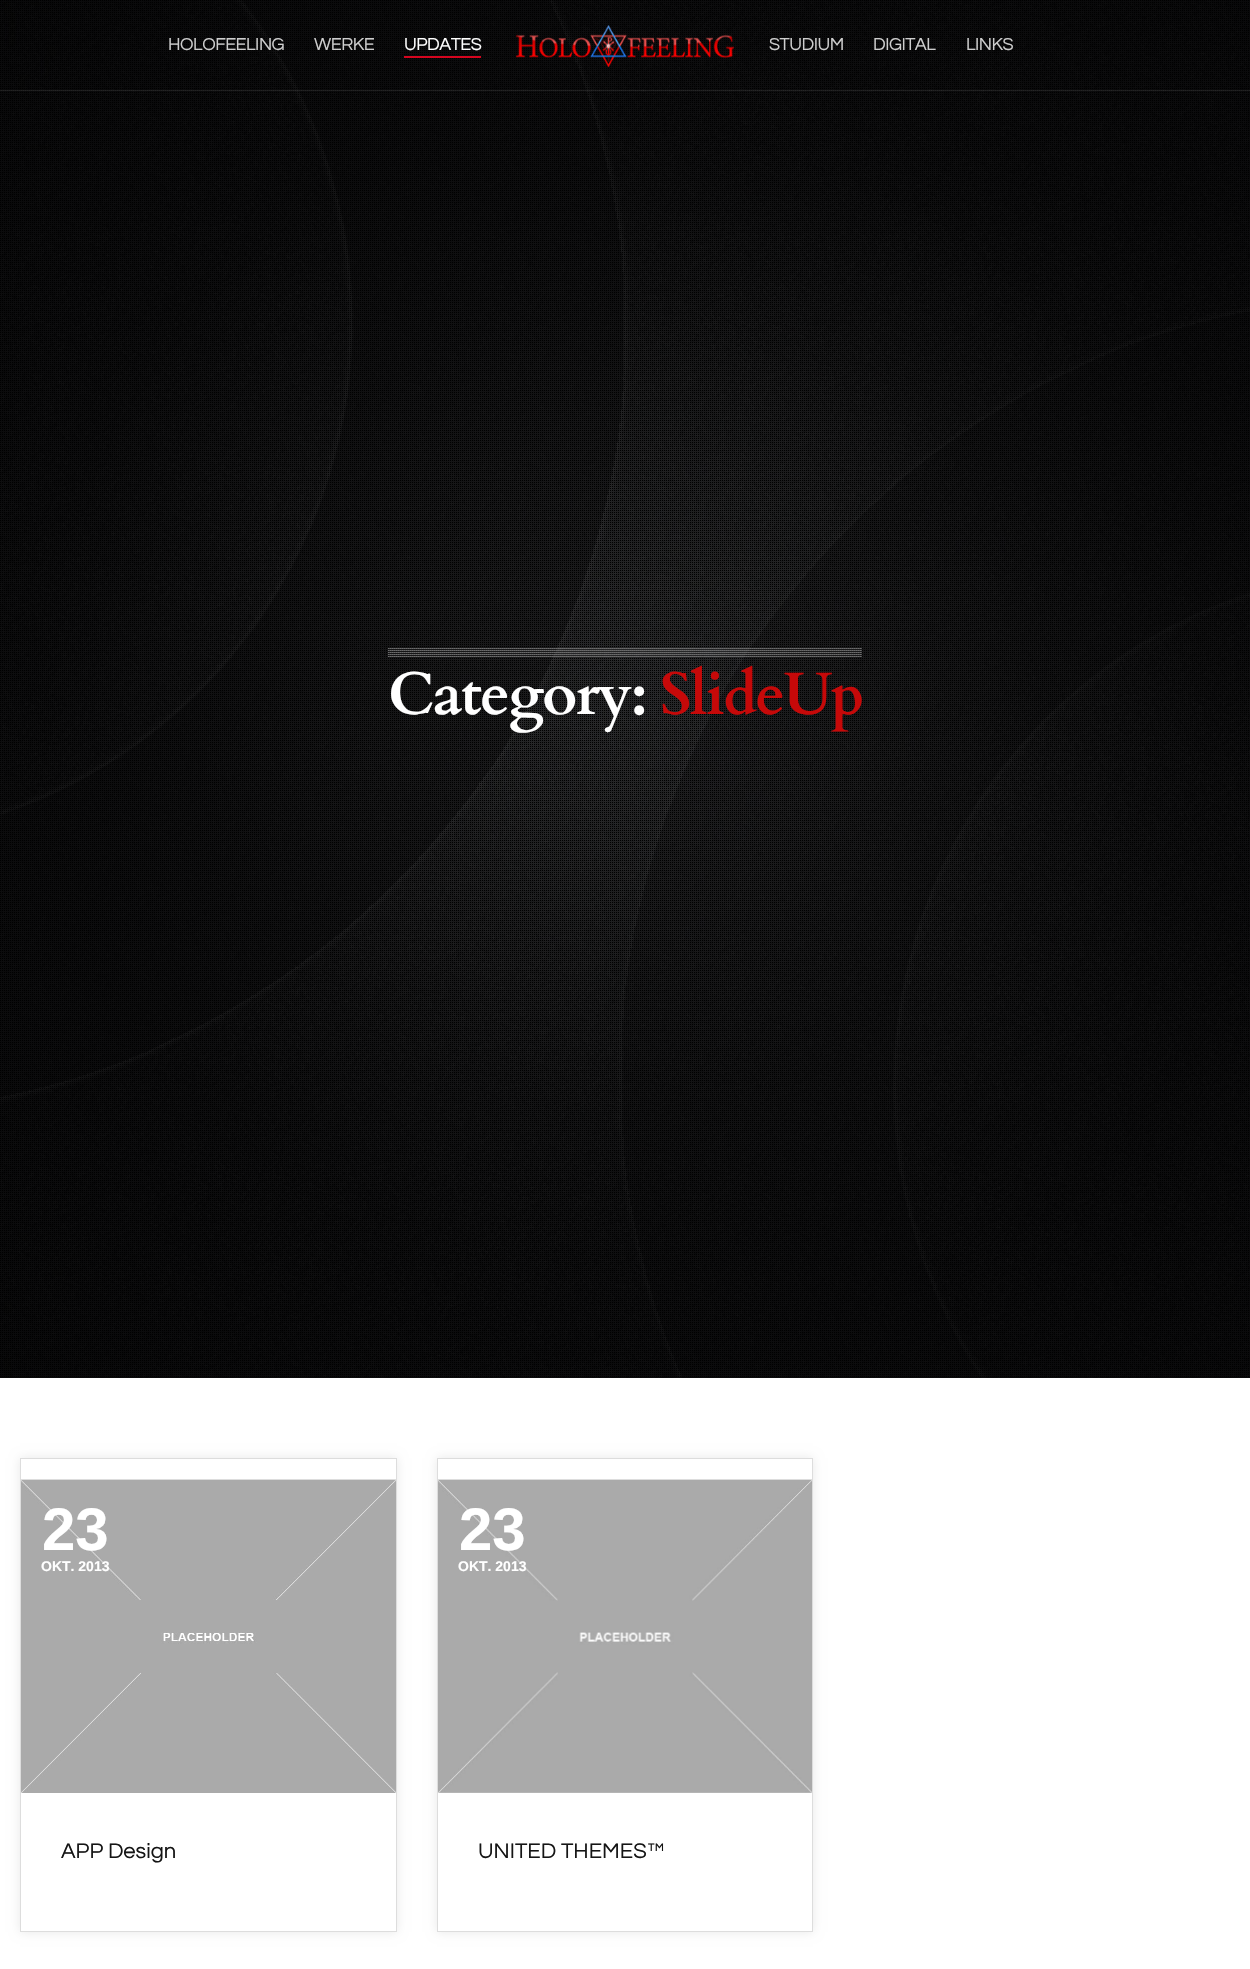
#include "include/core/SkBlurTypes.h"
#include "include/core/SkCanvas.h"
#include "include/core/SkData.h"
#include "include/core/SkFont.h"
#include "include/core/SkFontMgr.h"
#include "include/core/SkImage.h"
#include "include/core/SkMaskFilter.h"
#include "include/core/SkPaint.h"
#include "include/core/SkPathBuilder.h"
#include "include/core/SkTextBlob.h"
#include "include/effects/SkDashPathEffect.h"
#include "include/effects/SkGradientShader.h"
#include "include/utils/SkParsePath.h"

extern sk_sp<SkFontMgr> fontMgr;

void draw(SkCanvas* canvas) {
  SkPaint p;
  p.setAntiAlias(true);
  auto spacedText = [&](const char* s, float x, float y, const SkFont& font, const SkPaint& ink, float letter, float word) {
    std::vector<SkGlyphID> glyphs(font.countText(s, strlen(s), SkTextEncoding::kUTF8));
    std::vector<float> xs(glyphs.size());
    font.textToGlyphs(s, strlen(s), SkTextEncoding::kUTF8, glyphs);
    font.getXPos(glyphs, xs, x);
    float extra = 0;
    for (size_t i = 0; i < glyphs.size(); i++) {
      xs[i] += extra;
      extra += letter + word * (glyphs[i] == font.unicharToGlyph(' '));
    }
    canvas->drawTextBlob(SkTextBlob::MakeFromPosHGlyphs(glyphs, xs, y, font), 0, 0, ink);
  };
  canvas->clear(SK_ColorWHITE);
  canvas->drawImageRect(SkImages::DeferredFromEncodedData(SkData::MakeFromFileName("images/2.png")), SkRect::MakeLTRB(0, 0, 1250, 1378), SkSamplingOptions());
  canvas->drawImageRect(SkImages::DeferredFromEncodedData(SkData::MakeFromFileName("images/3.png")), SkRect::MakeLTRB(0, 0, 1250, 1378), SkSamplingOptions());
  p.setColor(SkColorSetARGB(26, 255, 255, 255));
  canvas->drawRect(SkRect::MakeLTRB(0, 90, 1250, 91), p);
  p.setColor(SkColorSetRGB(213, 5, 31));
  canvas->drawRect(SkRect::MakeLTRB(404, 56, 481, 58), p);
  canvas->drawImageRect(SkImages::DeferredFromEncodedData(SkData::MakeFromFileName("images/1.png")), SkRect::MakeLTRB(516, 25, 734, 67), SkSamplingOptions());
  canvas->drawImageRect(SkImages::DeferredFromEncodedData(SkData::MakeFromFileName("images/4.png")), SkRect::MakeLTRB(388, 648, 862, 657), SkSamplingOptions());
  canvas->save();
  canvas->clipPath(SkPathBuilder(SkPathFillType::kEvenOdd).moveTo(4, 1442).lineTo(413, 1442).lineTo(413, 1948).lineTo(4, 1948).close().moveTo(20, 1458).lineTo(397, 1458).lineTo(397, 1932).lineTo(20, 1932).close().detach(), true);
  p.setColor(SkColorSetARGB(23, 0, 0, 0));
  p.setMaskFilter(SkMaskFilter::MakeBlur(kNormal_SkBlurStyle, 5));
  canvas->drawRect(SkRect::MakeLTRB(20, 1458, 397, 1932), p);
  p.setMaskFilter(nullptr);
  canvas->restore();
  p.setStyle(SkPaint::kStroke_Style);
  p.setStrokeWidth(1);
  p.setColor(SkColorSetRGB(221, 221, 221));
  canvas->drawRect(SkRect::MakeLTRB(20.5f, 1458.5f, 396.5f, 1931.5f), p);
  p.setStyle(SkPaint::kFill_Style);
  canvas->drawRect(SkRect::MakeLTRB(21, 1479, 396, 1480), p);
  canvas->drawImageRect(SkImages::DeferredFromEncodedData(SkData::MakeFromFileName("images/5.png")), SkRect::MakeLTRB(21, 1480, 396, 1793), SkSamplingOptions());
  canvas->save();
  canvas->clipPath(SkPathBuilder(SkPathFillType::kEvenOdd).moveTo(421, 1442).lineTo(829, 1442).lineTo(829, 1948).lineTo(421, 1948).close().moveTo(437, 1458).lineTo(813, 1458).lineTo(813, 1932).lineTo(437, 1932).close().detach(), true);
  p.setColor(SkColorSetARGB(23, 0, 0, 0));
  p.setMaskFilter(SkMaskFilter::MakeBlur(kNormal_SkBlurStyle, 5));
  canvas->drawRect(SkRect::MakeLTRB(437, 1458, 813, 1932), p);
  p.setMaskFilter(nullptr);
  canvas->restore();
  p.setStyle(SkPaint::kStroke_Style);
  p.setColor(SkColorSetRGB(221, 221, 221));
  canvas->drawRect(SkRect::MakeLTRB(437.5f, 1458.5f, 812.5f, 1931.5f), p);
  p.setStyle(SkPaint::kFill_Style);
  canvas->drawRect(SkRect::MakeLTRB(438, 1479, 812, 1480), p);
  canvas->drawImageRect(SkImages::DeferredFromEncodedData(SkData::MakeFromFileName("images/6.png")), SkRect::MakeLTRB(438, 1480, 812, 1793), SkSamplingOptions());
  SkFont font1(fontMgr->matchFamilyStyle("Questrial", SkFontStyle::Normal()), 18);
  font1.setSubpixel(true);
  p.setColor(SkColorSetRGB(206, 206, 206));
  spacedText("HOLOFEELING", 168, 50, font1, p, -0.5f, 0);
  spacedText("WERKE", 314, 50, font1, p, -0.5f, 0);
  p.setColor(SK_ColorWHITE);
  spacedText("UPDATES", 404, 50, font1, p, -0.5f, 0);
  p.setColor(SkColorSetRGB(206, 206, 206));
  spacedText("STUDIUM", 769, 50, font1, p, -0.5f, 0);
  spacedText("DIGITAL", 873, 50, font1, p, -0.5f, 0);
  spacedText("LINKS", 966, 50, font1, p, -0.5f, 0);
  SkFont font2(fontMgr->matchFamilyStyle("Cardo", SkFontStyle::Bold()), 60);
  font2.setSubpixel(true);
  p.setColor(SK_ColorWHITE);
  spacedText("Category:", 388, 714, font2, p, -1.75f, 0);
  p.setColor(SkColorSetRGB(198, 9, 9));
  spacedText("SlideUp", 660, 714, font2, p, -1.75f, 0);
  SkFont font3(fontMgr->matchFamilyStyle("Liberation Sans", SkFontStyle::Bold()), 60);
  font3.setSubpixel(true);
  p.setColor(SK_ColorWHITE);
  canvas->drawString("23", 42, 1550, font3, p);
  SkFont font4(fontMgr->matchFamilyStyle("Liberation Sans", SkFontStyle::Bold()), 14);
  font4.setSubpixel(true);
  canvas->drawString("OKT. 2013", 41, 1571, font4, p);
  SkFont font5(fontMgr->matchFamilyStyle("Questrial", SkFontStyle::Normal()), 22);
  font5.setSubpixel(true);
  p.setColor(SkColorSetRGB(21, 21, 21));
  canvas->drawString("APP Design", 61, 1858, font5, p);
  p.setColor(SK_ColorWHITE);
  canvas->drawString("23", 459, 1550, font3, p);
  canvas->drawString("OKT. 2013", 458, 1571, font4, p);
  p.setColor(SkColorSetRGB(21, 21, 21));
  canvas->drawString("UNITED THEMES™", 478, 1858, font5, p);
}
